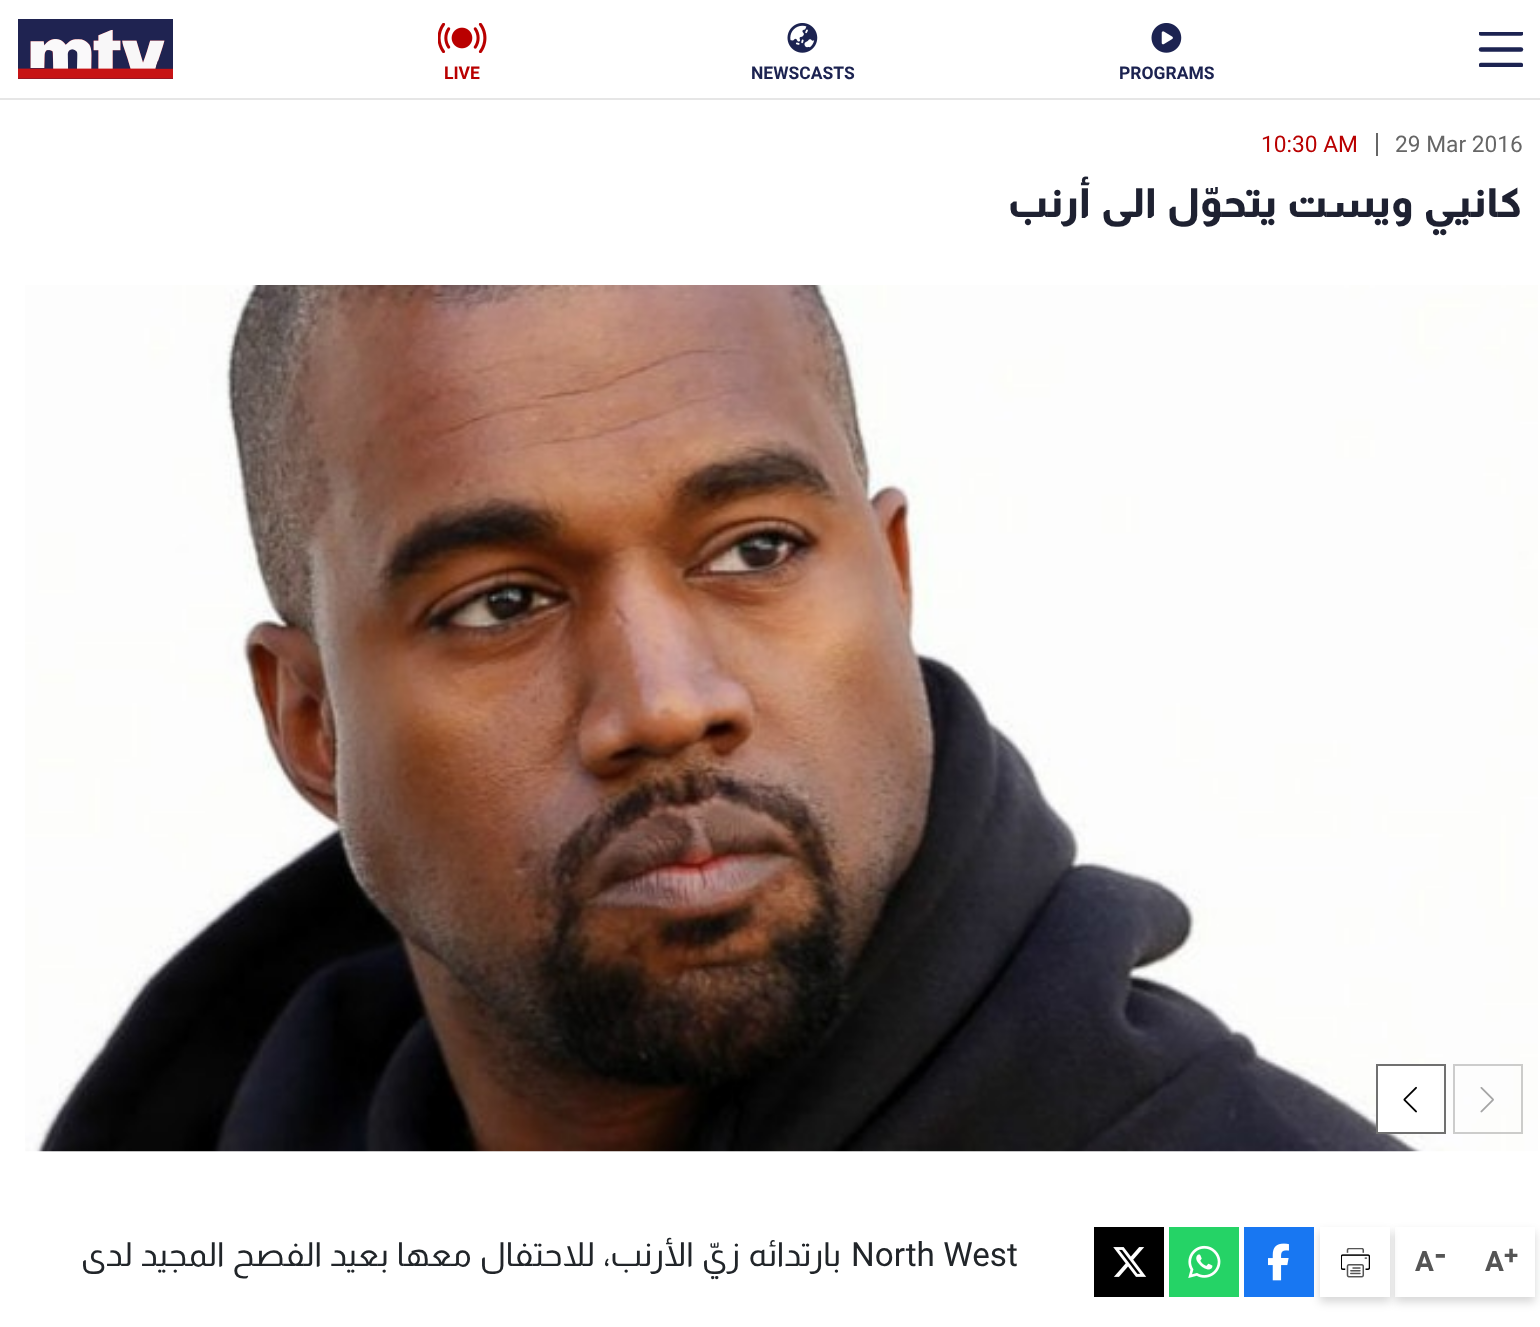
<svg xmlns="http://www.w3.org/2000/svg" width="1540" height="1327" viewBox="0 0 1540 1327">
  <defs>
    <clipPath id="clip1"><rect x="1479" y="32" width="44" height="35"/></clipPath>
    <filter id="blur1" x="-50%" y="-200%" width="200%" height="500%"><feGaussianBlur stdDeviation="5"/></filter>
  </defs>
  <rect width="100%" height="100%" fill="#ffffff"/>
  <rect x="0" y="98" width="1540" height="2" fill="#e6e6e6"/>
  <g clip-path="url(#clip1)">
    <path d="M1481 33.5H1521" fill="none" stroke="#1c2351" stroke-width="4.4" stroke-linecap="round"/>
  </g>
  <path d="M1481 49.5H1521" fill="none" stroke="#1c2351" stroke-width="4.4" stroke-linecap="round"/>
  <g clip-path="url(#clip1)">
    <path d="M1481 65H1521" fill="none" stroke="#1c2351" stroke-width="4.4" stroke-linecap="round"/>
  </g>
  <image x="18" y="19" width="155" height="60" href="img1.png"/>
  <image x="1151" y="23" width="31" height="30" href="img2.png"/>
  <text x="1119" y="79" font-family="Roboto" font-size="17.5" font-weight="bold" fill="#1c2351">PROGRAMS</text>
  <image x="787" y="23" width="31" height="30" href="img3.png"/>
  <text x="751" y="79" font-family="Roboto" font-size="17.5" font-weight="bold" fill="#1c2351">NEWSCASTS</text>
  <image x="438" y="23" width="49" height="30" href="img4.png"/>
  <text x="444" y="79" font-family="Roboto" font-size="17.5" font-weight="bold" fill="#b90000">LIVE</text>
  <rect x="1376" y="133" width="2" height="23" fill="#666666"/>
  <text x="1395" y="152" font-family="Roboto" font-size="22.75" fill="#666666">29 Mar 2016</text>
  <text x="1261" y="152" font-family="Roboto" font-size="22.75" fill="#b90000">10:30 AM</text>
  <text x="1522" y="217" word-spacing="2.5" font-family="Almarai" font-size="40.25" font-weight="800" direction="rtl" fill="#1e2131">كانيي ويست يتحوّل الى أرنب</text>
  <rect x="1395" y="1232" width="140" height="70" fill="#000000" fill-opacity="0.16" filter="url(#blur1)"/>
  <rect x="1395" y="1227" width="140" height="70" fill="#ffffff"/>
  <text x="1504" y="1264" font-family="Roboto" font-size="26" font-weight="bold" fill="#555555">+</text>
  <text x="1485" y="1271" font-family="Roboto" font-size="28" font-weight="bold" fill="#555555">A</text>
  <text x="1434" y="1266" font-family="Roboto" font-size="33.25" font-weight="bold" fill="#555555">-</text>
  <text x="1415" y="1271" font-family="Roboto" font-size="28" font-weight="bold" fill="#555555">A</text>
  <rect x="1320" y="1232" width="70" height="70" fill="#000000" fill-opacity="0.16" filter="url(#blur1)"/>
  <rect x="1320" y="1227" width="70" height="70" fill="#ffffff"/>
  <image x="1341" y="1248" width="29" height="30" href="img5.png"/>
  <rect x="1244" y="1227" width="70" height="70" fill="#1877f2"/>
  <image x="1268" y="1243" width="21" height="38" href="img6.png"/>
  <rect x="1169" y="1227" width="70" height="70" fill="#25d366"/>
  <image x="1188" y="1245" width="33" height="33" href="img7.png"/>
  <rect x="1094" y="1227" width="70" height="70" fill="#000000"/>
  <image x="1113" y="1247" width="34" height="30" href="img8.png"/>
  <text x="851" y="1266" font-family="Roboto" font-size="33.25" fill="#212529">North West</text>
  <text x="841" y="1266" word-spacing="2" font-family="Almarai" font-size="33.25" direction="rtl" fill="#212529">بارتدائه زيّ الأرنب، للاحتفال معها بعيد الفصح المجيد لدى</text>
  <image x="25" y="285" width="1513" height="867" href="img9.png"/>
  <rect x="1454" y="1065" width="68" height="68" fill="none" stroke="#707070" stroke-opacity="0.35" stroke-width="2"/>
  <image x="1480" y="1087" width="14" height="26" href="img10.png"/>
  <rect x="1378" y="1066" width="62" height="66" fill="#ffffff"/>
  <rect x="1377" y="1065" width="68" height="68" fill="none" stroke="#707070" stroke-width="2"/>
  <image x="1403" y="1086" width="14" height="27" href="img11.png"/>
</svg>
